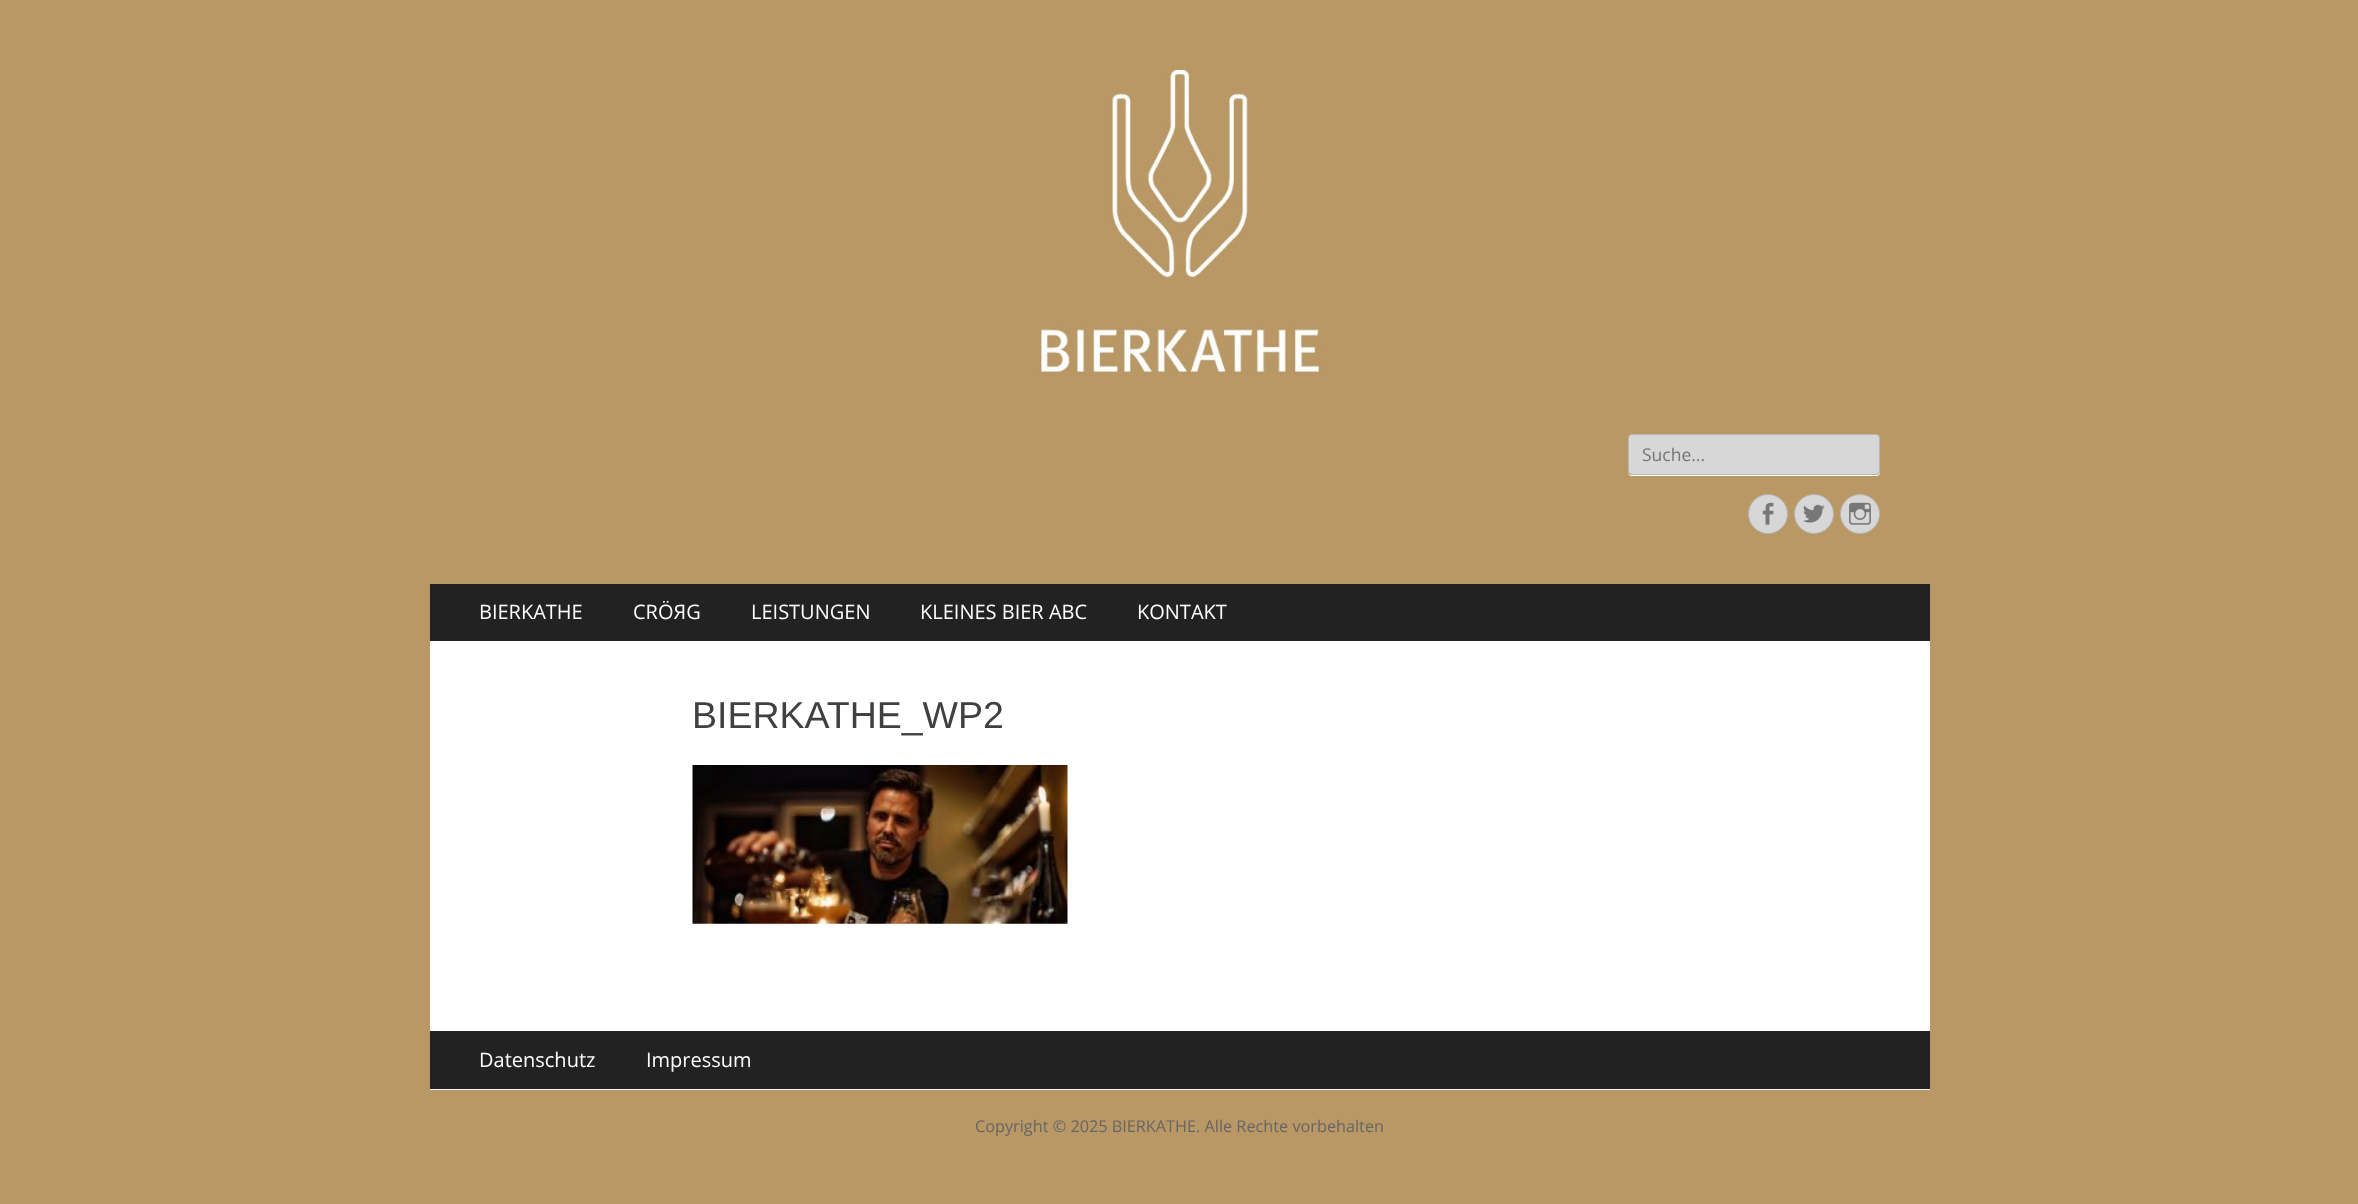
<svg xmlns="http://www.w3.org/2000/svg" width="2358" height="1204" viewBox="0 0 2358 1204">
  <rect width="100%" height="100%" fill="#b99865"/>
  <image x="1033" y="68" width="291" height="307" href="img1.png"/>
  <path d="M1628 474C1629 475 1630 476 1632 476H1876C1879 476 1880 474 1880 471C1880 473 1878 475 1876 475H1631C1630 475 1629 474 1628 474Z" fill="#ffffff"/>
  <rect x="1628.5" y="434.5" width="251" height="40" rx="3.5" fill="#d7d7d7" stroke="#b6b6b6"/>
  <text x="1642" y="461" font-family="Open Sans" font-size="17.5" fill="#757575">Suche...</text>
  <circle cx="1768" cy="514" r="19.5" fill="#d7d7d7" stroke="#b6b6b6"/>
  <image x="1762" y="502" width="12" height="23" href="img2.png"/>
  <circle cx="1814" cy="514" r="19.5" fill="#d7d7d7" stroke="#b6b6b6"/>
  <image x="1803" y="504" width="22" height="19" href="img3.png"/>
  <circle cx="1860" cy="514" r="19.5" fill="#d7d7d7" stroke="#b6b6b6"/>
  <image x="1849" y="502" width="22" height="23" href="img4.png"/>
  <rect x="430" y="584" width="1500" height="57" fill="#222222"/>
  <text x="479" y="619" font-family="Open Sans" font-size="20" fill="#ffffff">BIERKATHE</text>
  <text x="633" y="619" font-family="Open Sans" font-size="20" fill="#ffffff">CRÖЯG</text>
  <text x="751" y="619" font-family="Open Sans" font-size="20" fill="#ffffff">LEISTUNGEN</text>
  <text x="920" y="619" font-family="Open Sans" font-size="20" fill="#ffffff">KLEINES BIER ABC</text>
  <text x="1137" y="619" font-family="Open Sans" font-size="20" fill="#ffffff">KONTAKT</text>
  <rect x="430" y="641" width="1500" height="390" fill="#ffffff"/>
  <text x="692" y="728" font-family="Liberation Sans" font-size="37.5" fill="#404040">BIERKATHE_WP2</text>
  <image x="692" y="765" width="376" height="159" href="img5.png"/>
  <rect x="430" y="1031" width="1500" height="58" fill="#222222"/>
  <text x="479" y="1067" font-family="Open Sans" font-size="20" fill="#ffffff">Datenschutz</text>
  <text x="646" y="1067" font-family="Open Sans" font-size="20" fill="#ffffff">Impressum</text>
  <rect x="430" y="1089" width="1500" height="1" fill="#f4f4f4"/>
  <text x="975" y="1132" font-family="Open Sans" font-size="16.25" fill="#666666">Copyright © 2025 BIERKATHE. Alle Rechte vorbehalten</text>
</svg>
